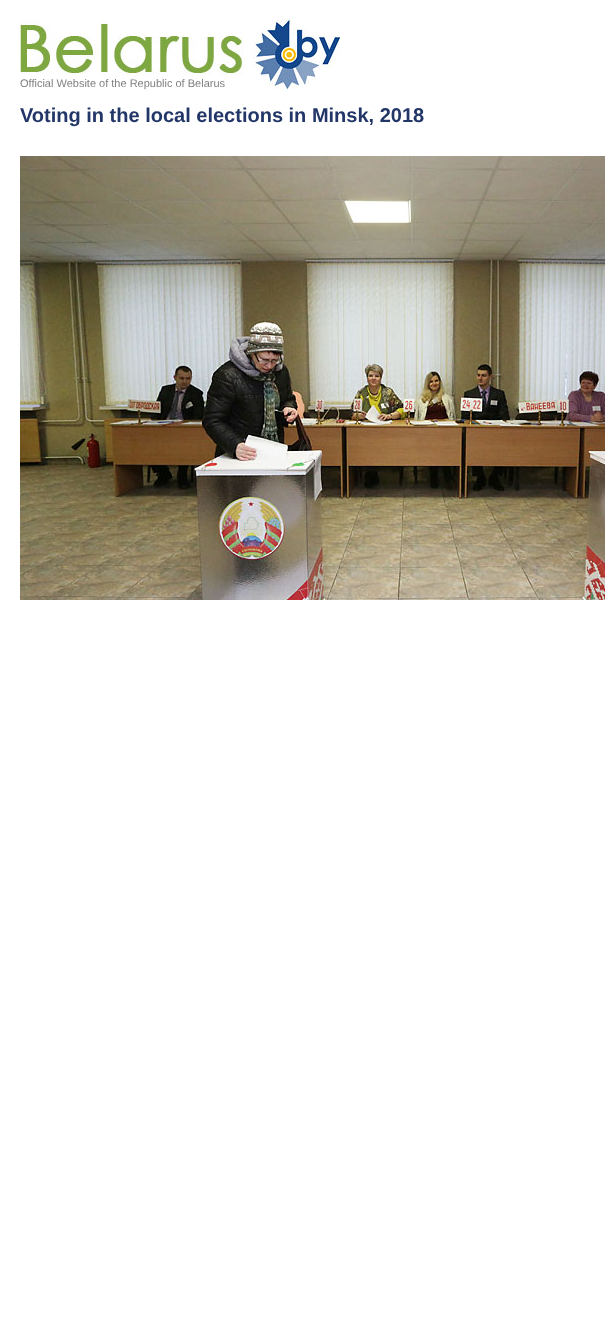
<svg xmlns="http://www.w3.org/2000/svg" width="605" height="1320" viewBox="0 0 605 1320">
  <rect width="100%" height="100%" fill="#ffffff"/>
  <image x="20" y="20" width="320" height="70" href="img1.png"/>
  <text x="20" y="87" font-family="Liberation Sans" font-size="11" fill="#818181">Official Website of the Republic of Belarus</text>
  <text x="20" y="122" font-family="Liberation Sans" font-size="20" font-weight="bold" fill="#223668">Voting in the local elections in Minsk, 2018</text>
  <image x="20" y="156" width="585" height="444" href="img2.png"/>
</svg>
